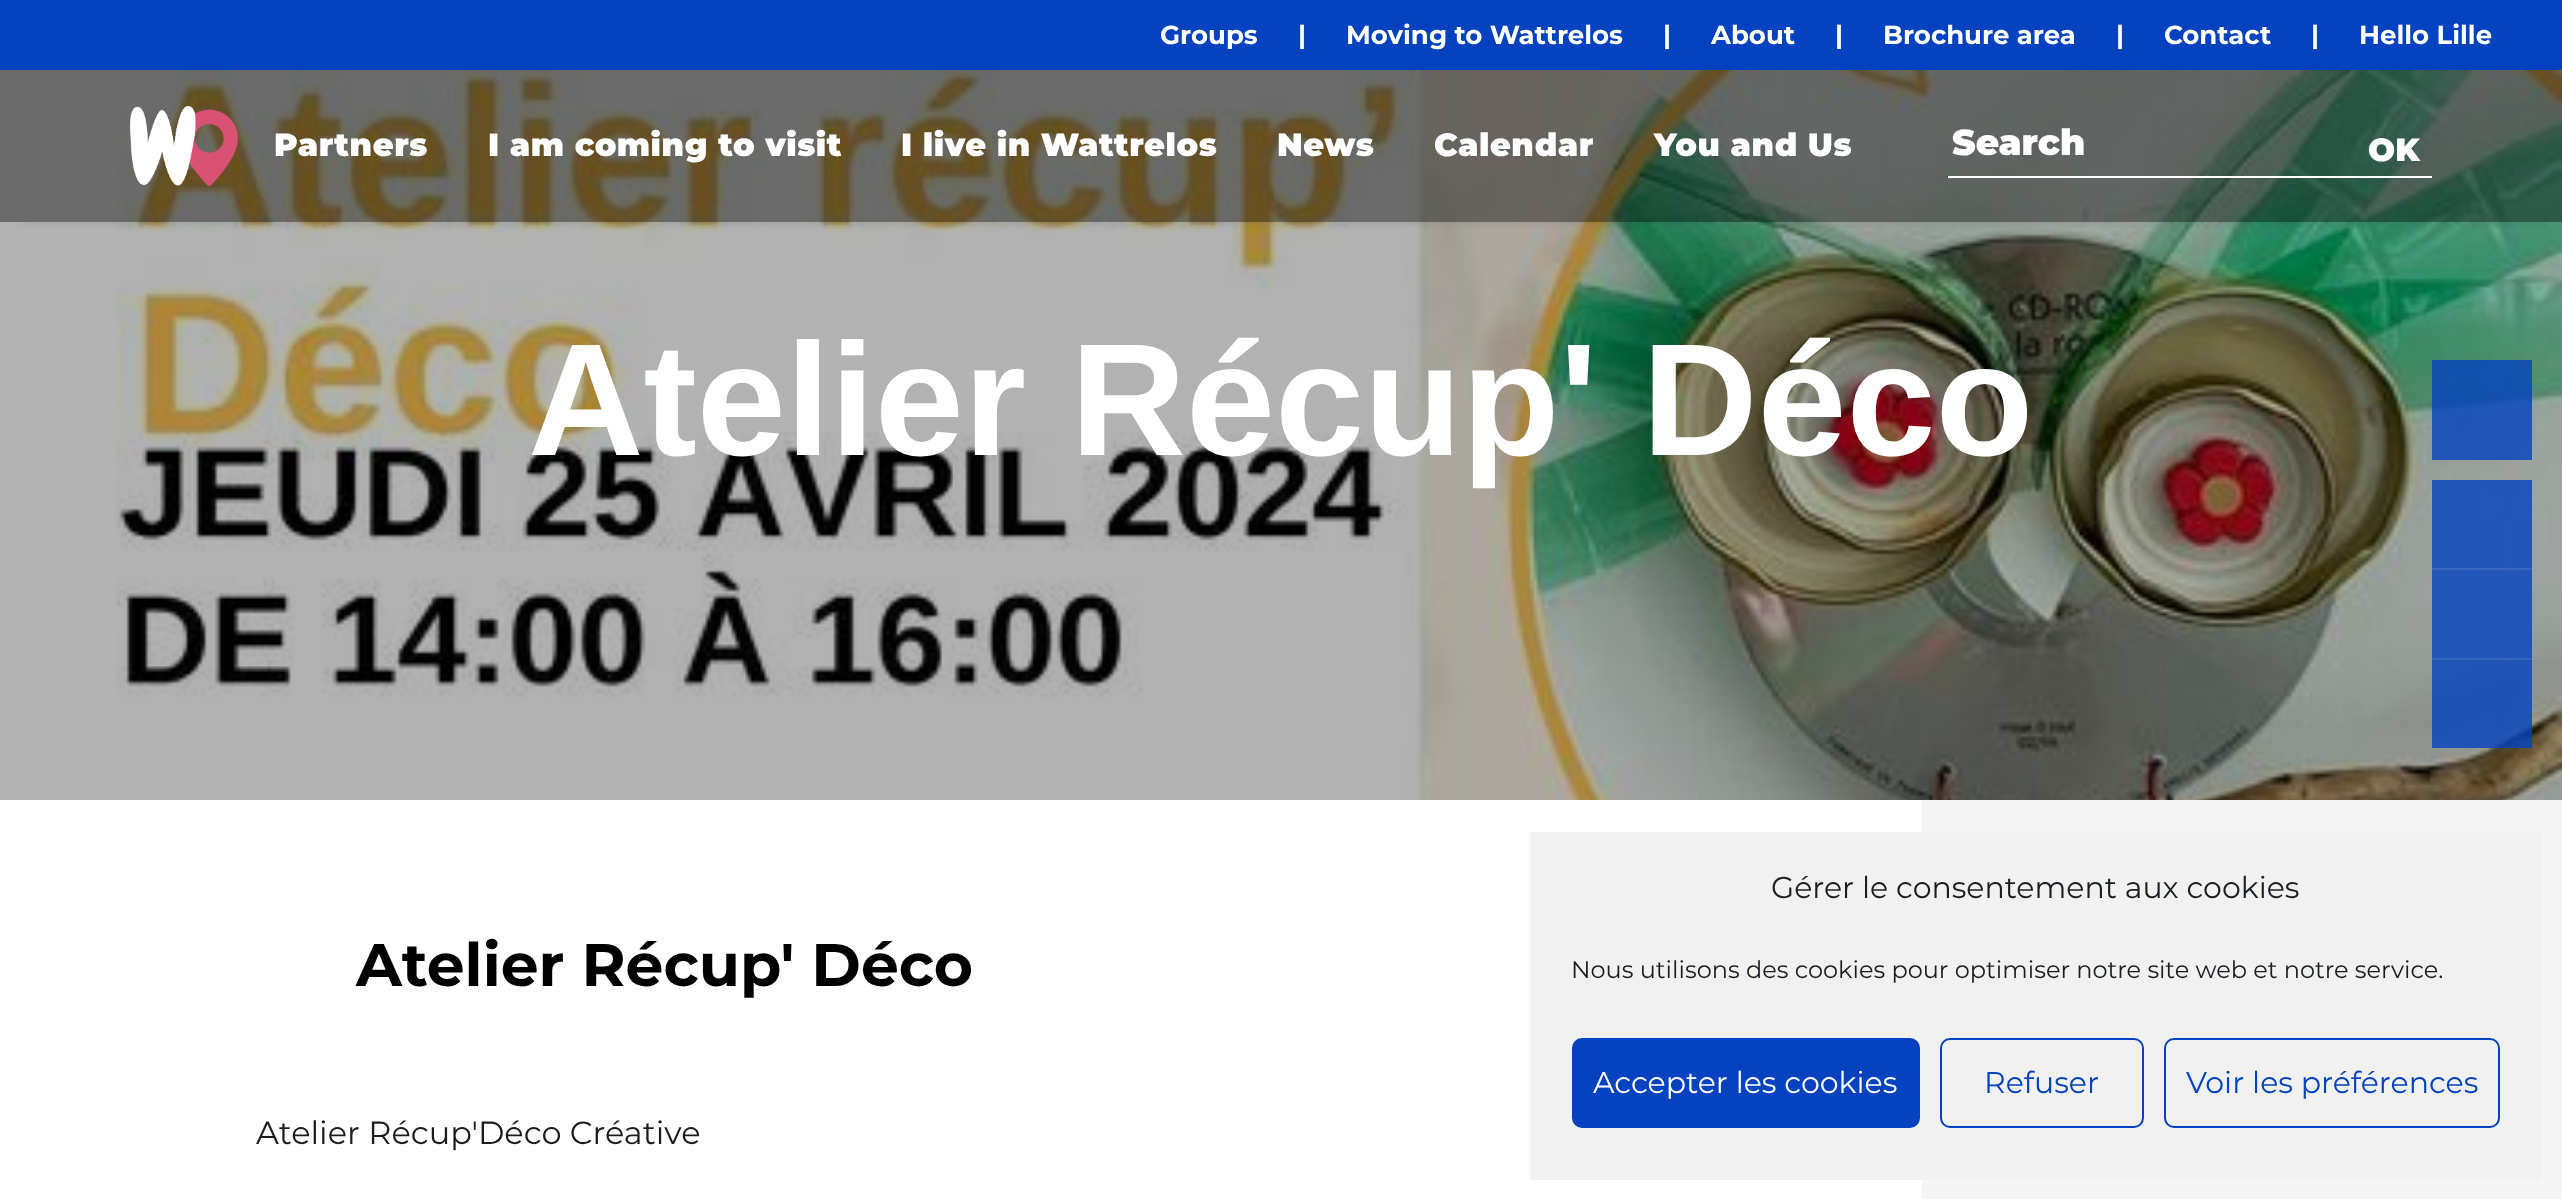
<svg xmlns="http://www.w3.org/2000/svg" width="2562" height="1199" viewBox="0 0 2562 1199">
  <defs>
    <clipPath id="clip1"><rect x="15" y="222" width="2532" height="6"/></clipPath>
    <filter id="blur1" x="-50%" y="-200%" width="200%" height="500%"><feGaussianBlur stdDeviation="10"/></filter>
  </defs>
  <rect width="100%" height="100%" fill="#b3b3b3"/>
  <image x="115" y="70" width="2447" height="730" href="img2.png"/>
  <g clip-path="url(#clip1)">
    <rect x="20" y="98" width="2522" height="112" fill="#000000" fill-opacity="0.6" filter="url(#blur1)"/>
  </g>
  <rect x="0" y="0" width="2562" height="70" fill="#0442bf"/>
  <text x="1160" y="44" font-family="Montserrat" font-size="26" font-weight="bold" fill="#ffffff">Groups</text>
  <text x="1298" y="44" font-family="Montserrat" font-size="26" font-weight="bold" fill="#ffffff">|</text>
  <text x="1346" y="44" font-family="Montserrat" font-size="26" font-weight="bold" fill="#ffffff">Moving to Wattrelos</text>
  <text x="1663" y="44" font-family="Montserrat" font-size="26" font-weight="bold" fill="#ffffff">|</text>
  <text x="1711" y="44" font-family="Montserrat" font-size="26" font-weight="bold" fill="#ffffff">About</text>
  <text x="1835" y="44" font-family="Montserrat" font-size="26" font-weight="bold" fill="#ffffff">|</text>
  <text x="1883" y="44" font-family="Montserrat" font-size="26" font-weight="bold" fill="#ffffff">Brochure area</text>
  <text x="2116" y="44" font-family="Montserrat" font-size="26" font-weight="bold" fill="#ffffff">|</text>
  <text x="2164" y="44" font-family="Montserrat" font-size="26" font-weight="bold" fill="#ffffff">Contact</text>
  <text x="2311" y="44" font-family="Montserrat" font-size="26" font-weight="bold" fill="#ffffff">|</text>
  <text x="2359" y="44" font-family="Montserrat" font-size="26" font-weight="bold" fill="#ffffff">Hello Lille</text>
  <rect x="0" y="70" width="2562" height="152" fill="#000000" fill-opacity="0.4"/>
  <image x="130" y="106" width="108" height="80" href="img1.png"/>
  <text x="274" y="156" font-family="Montserrat" font-size="32" font-weight="900" letter-spacing="0.5" fill="#ffffff">Partners</text>
  <text x="488" y="156" font-family="Montserrat" font-size="32" font-weight="900" letter-spacing="0.5" fill="#ffffff">I am coming to visit</text>
  <text x="901" y="156" font-family="Montserrat" font-size="32" font-weight="900" letter-spacing="0.5" fill="#ffffff">I live in Wattrelos</text>
  <text x="1277" y="156" font-family="Montserrat" font-size="32" font-weight="900" letter-spacing="0.5" fill="#ffffff">News</text>
  <text x="1434" y="156" font-family="Montserrat" font-size="32" font-weight="900" letter-spacing="0.5" fill="#ffffff">Calendar</text>
  <text x="1654" y="156" font-family="Montserrat" font-size="32" font-weight="900" letter-spacing="0.5" fill="#ffffff">You and Us</text>
  <rect x="1948" y="176" width="484" height="2" fill="#ffffff"/>
  <text x="1952" y="155" font-family="Montserrat" font-size="36" font-weight="900" fill="#ffffff">Search</text>
  <text x="2368" y="161" font-family="Montserrat" font-size="32" font-weight="900" fill="#ffffff">OK</text>
  <text x="528" y="455" font-family="Liberation Sans" font-size="160" font-weight="bold" fill="#ffffff">Atelier Récup' Déco</text>
  <rect x="2432" y="360" width="100" height="100" fill="#0442bf" fill-opacity="0.8"/>
  <rect x="2432" y="480" width="100" height="88" fill="#0442bf" fill-opacity="0.8"/>
  <rect x="2432" y="568" width="100" height="2" fill="#3966c0"/>
  <rect x="2432" y="570" width="100" height="88" fill="#0442bf" fill-opacity="0.8"/>
  <rect x="2432" y="658" width="100" height="2" fill="#3765be"/>
  <rect x="2432" y="660" width="100" height="88" fill="#0442bf" fill-opacity="0.8"/>
  <rect x="1922" y="800" width="640" height="399" fill="#f5f5f5"/>
  <rect x="0" y="800" width="1922" height="399" fill="#ffffff"/>
  <text x="356" y="986" font-family="Montserrat" font-size="60" font-weight="bold" fill="#000000">Atelier Récup' Déco</text>
  <text x="256" y="1144" font-family="Montserrat" font-size="32" fill="#1c1c1c">Atelier Récup'Déco Créative</text>
  <rect x="1530" y="832" width="1012" height="348" fill="#f1f1f1"/>
  <text x="1771" y="898" font-family="Montserrat" font-size="30" fill="#191e23">Gérer le consentement aux cookies</text>
  <text x="1571" y="978" font-family="Montserrat" font-size="24" fill="#191e23">Nous utilisons des cookies pour optimiser notre site web et notre service.</text>
  <rect x="1573" y="1039" width="346" height="88" rx="9" fill="#0442bf" stroke="#0442bf" stroke-width="2"/>
  <text x="1593" y="1093" font-family="Montserrat" font-size="30" fill="#ffffff">Accepter les cookies</text>
  <rect x="1941" y="1039" width="202" height="88" rx="9" fill="none" stroke="#0442bf" stroke-width="2"/>
  <text x="1984" y="1093" font-family="Montserrat" font-size="30" fill="#0442bf">Refuser</text>
  <rect x="2165" y="1039" width="334" height="88" rx="9" fill="none" stroke="#0442bf" stroke-width="2"/>
  <text x="2186" y="1093" font-family="Montserrat" font-size="30" fill="#0442bf">Voir les préférences</text>
</svg>
